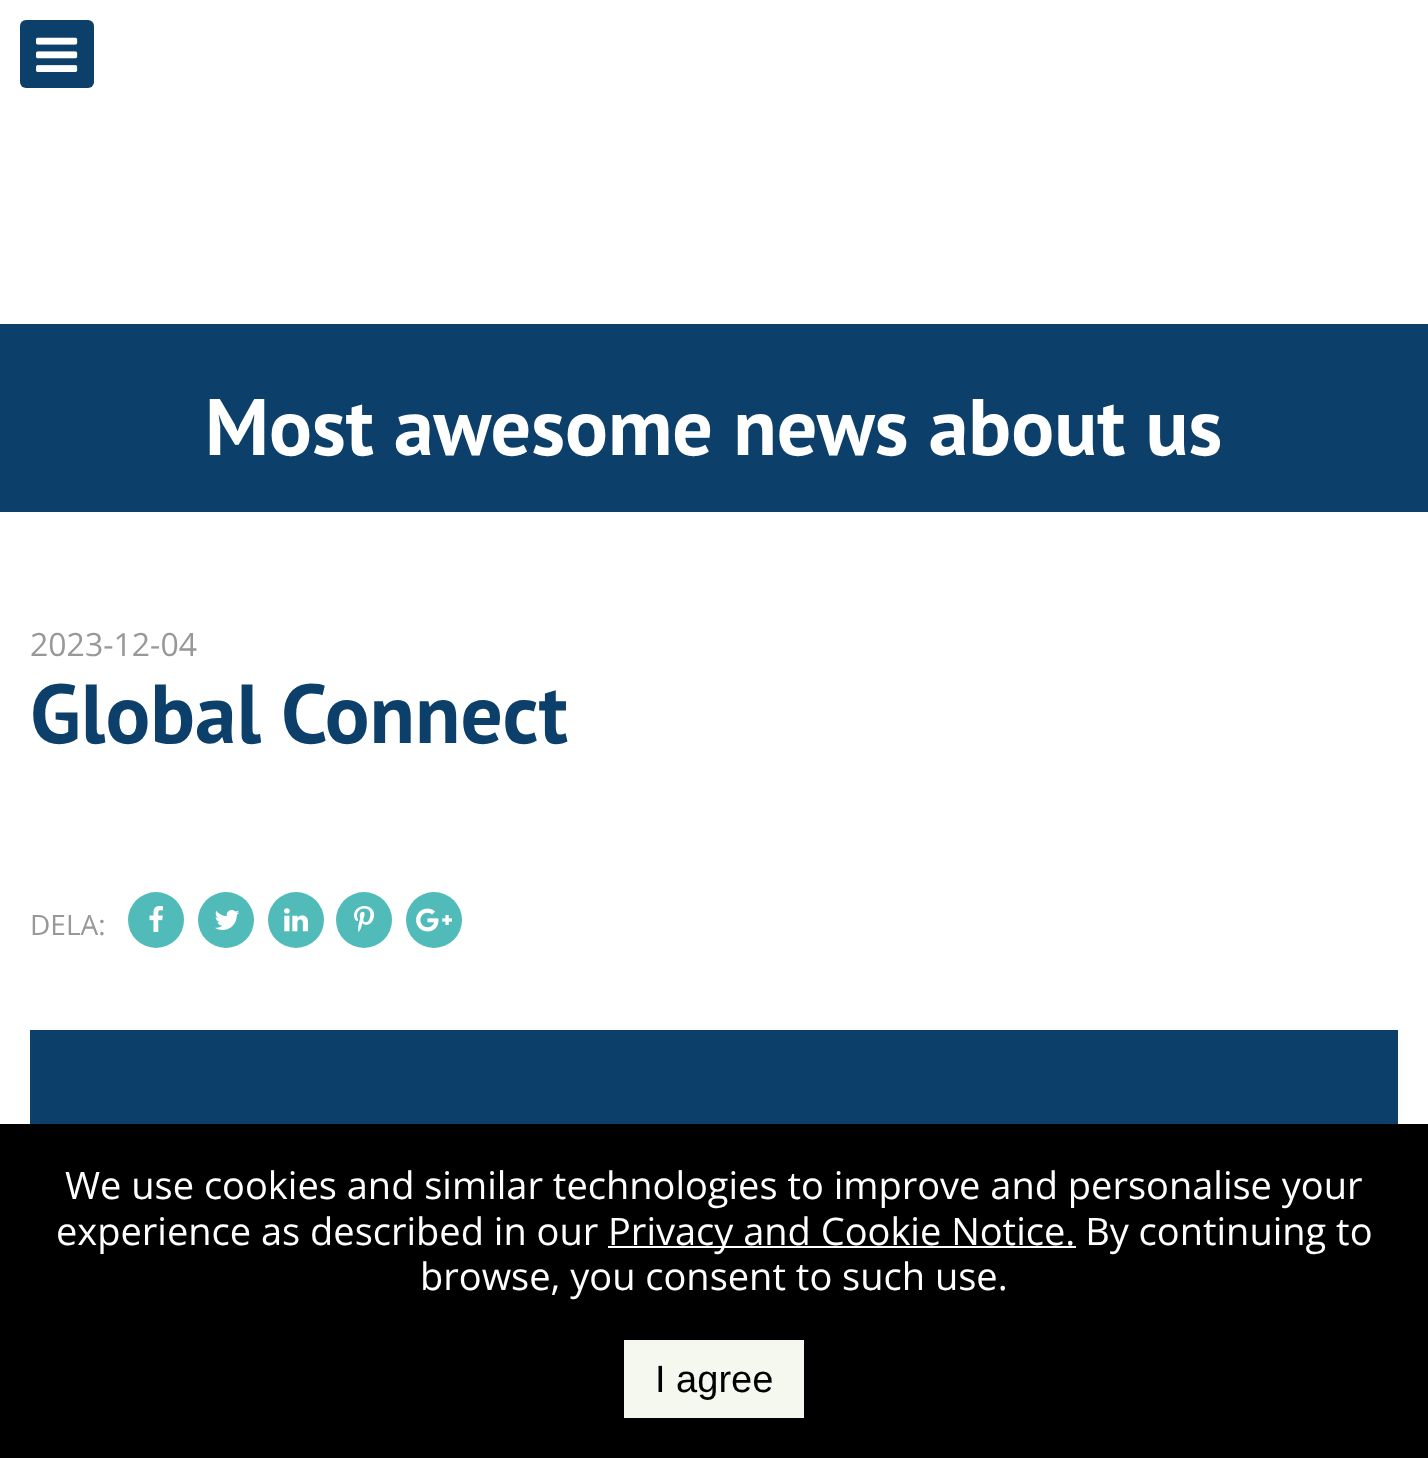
<svg xmlns="http://www.w3.org/2000/svg" width="1428" height="1458" viewBox="0 0 1428 1458">
  <rect width="100%" height="100%" fill="#ffffff"/>
  <rect x="20" y="20" width="74" height="68" rx="6" fill="#0c3f69"/>
  <image x="36" y="37" width="42" height="35" href="img1.png"/>
  <rect x="0" y="324" width="1428" height="188" fill="#0c3f69"/>
  <text x="205" y="455" font-family="PT Sans" font-size="80" font-weight="bold" fill="#ffffff">Most awesome news about us</text>
  <text x="30" y="656" font-family="Open Sans" font-size="32" fill="#989898">2023-12-04</text>
  <text x="30" y="743" font-family="PT Sans" font-size="83.5" font-weight="bold" fill="#0c3f69">Global Connect</text>
  <text x="30" y="935" font-family="Open Sans" font-size="28" fill="#989898">DELA:</text>
  <circle cx="156" cy="920" r="28" fill="#50bbb9"/>
  <image x="149" y="906" width="14" height="26" href="img2.png"/>
  <circle cx="226" cy="920" r="28" fill="#50bbb9"/>
  <image x="214" y="910" width="26" height="20" href="img3.png"/>
  <circle cx="296" cy="920" r="28" fill="#50bbb9"/>
  <image x="284" y="908" width="24" height="24" href="img4.png"/>
  <circle cx="364" cy="920" r="28" fill="#50bbb9"/>
  <image x="354" y="906" width="20" height="26" href="img5.png"/>
  <circle cx="434" cy="920" r="28" fill="#50bbb9"/>
  <image x="416" y="908" width="36" height="24" href="img6.png"/>
  <rect x="30" y="1030" width="1368" height="94" fill="#0c3f69"/>
  <rect x="0" y="1124" width="1428" height="334" fill="#000000"/>
  <text x="65" y="1199" font-family="Open Sans" font-size="38" fill="#ffffff">We use cookies and similar technologies to improve and personalise your</text>
  <text x="56" y="1245" font-family="Open Sans" font-size="38" fill="#ffffff">experience as described in our</text>
  <rect x="608" y="1246" width="468" height="2" fill="#ffffff"/>
  <text x="608" y="1245" font-family="Open Sans" font-size="38" fill="#ffffff">Privacy and Cookie Notice. By continuing to</text>
  <text x="420" y="1290" font-family="Open Sans" font-size="38" fill="#ffffff">browse, you consent to such use.</text>
  <rect x="624" y="1340" width="180" height="78" fill="#f5f8ee"/>
  <text x="655" y="1392" font-family="Liberation Sans" font-size="38" fill="#000000">I agree</text>
</svg>
